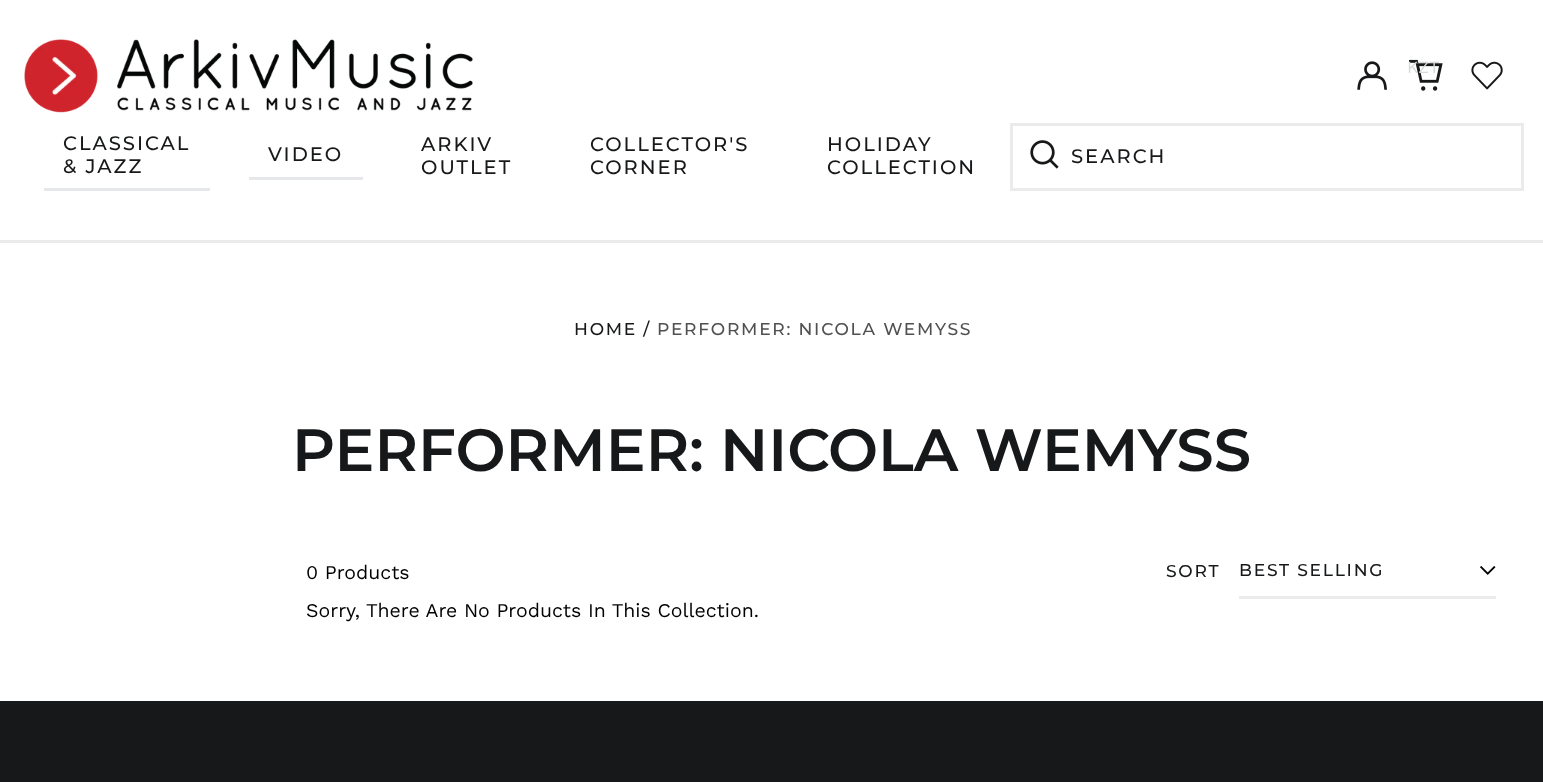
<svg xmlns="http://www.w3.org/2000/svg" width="1543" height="782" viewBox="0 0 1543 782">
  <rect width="100%" height="100%" fill="#ffffff"/>
  <image x="1409" y="59" width="34" height="32" href="img3.png"/>
  <text x="1407" y="73" font-family="Work Sans" font-size="17.1" fill="#d7d8d8">KZT</text>
  <rect x="0" y="240" width="1543" height="3" fill="#ebebeb"/>
  <image x="24" y="39" width="449" height="74" href="img1.png"/>
  <image x="1357" y="61" width="30" height="29" href="img2.png"/>
  <image x="1471" y="61" width="32" height="29" href="img4.png"/>
  <rect x="44" y="188" width="166" height="3" fill="#e5e7eb"/>
  <text x="63" y="150" font-family="Montserrat" font-size="19.5" font-weight="500" letter-spacing="2" fill="#161819">CLASSICAL</text>
  <text x="63" y="173" font-family="Montserrat" font-size="19.5" font-weight="500" letter-spacing="2" fill="#161819">&amp; JAZZ</text>
  <rect x="249" y="177" width="114" height="3" fill="#e5e7eb"/>
  <text x="268" y="161" font-family="Montserrat" font-size="19.5" font-weight="500" letter-spacing="2" fill="#161819">VIDEO</text>
  <text x="421" y="151" font-family="Montserrat" font-size="19.5" font-weight="500" letter-spacing="2" fill="#161819">ARKIV</text>
  <text x="421" y="174" font-family="Montserrat" font-size="19.5" font-weight="500" letter-spacing="2" fill="#161819">OUTLET</text>
  <text x="590" y="151" font-family="Montserrat" font-size="19.5" font-weight="500" letter-spacing="2" fill="#161819">COLLECTOR'S</text>
  <text x="590" y="174" font-family="Montserrat" font-size="19.5" font-weight="500" letter-spacing="2" fill="#161819">CORNER</text>
  <text x="827" y="151" font-family="Montserrat" font-size="19.5" font-weight="500" letter-spacing="2" fill="#161819">HOLIDAY</text>
  <text x="827" y="174" font-family="Montserrat" font-size="19.5" font-weight="500" letter-spacing="2" fill="#161819">COLLECTION</text>
  <rect x="1011.5" y="124.5" width="511" height="65" fill="none" stroke="#ebebeb" stroke-width="3"/>
  <image x="1030" y="140" width="29" height="29" href="img5.png"/>
  <text x="1071" y="163" font-family="Montserrat" font-size="19.5" font-weight="500" letter-spacing="2" fill="#161819">SEARCH</text>
  <text x="574" y="335" font-family="Montserrat" font-size="17.1" font-weight="500" letter-spacing="1.75" fill="#161819">HOME /</text>
  <text x="657" y="335" font-family="Montserrat" font-size="17.1" font-weight="500" letter-spacing="1.75" fill="#505050">PERFORMER: NICOLA WEMYSS</text>
  <text x="292" y="471" font-family="Montserrat" font-size="59.5" font-weight="600" fill="#161819">PERFORMER: NICOLA WEMYSS</text>
  <text x="306" y="579" font-family="Work Sans" font-size="19.5" fill="#000000">0 Products</text>
  <text x="1166" y="577" font-family="Montserrat" font-size="17.1" font-weight="500" letter-spacing="1.75" fill="#161819">SORT</text>
  <image x="1480" y="566" width="16" height="9" href="img6.png"/>
  <rect x="1239" y="596" width="257" height="3" fill="#ebebeb"/>
  <text x="1239" y="576" font-family="Montserrat" font-size="17.1" font-weight="500" letter-spacing="1.75" fill="#161819">BEST SELLING</text>
  <text x="306" y="617" font-family="Work Sans" font-size="19.5" fill="#000000">Sorry, There Are No Products In This Collection.</text>
  <rect x="0" y="701" width="1543" height="81" fill="#161819"/>
</svg>
